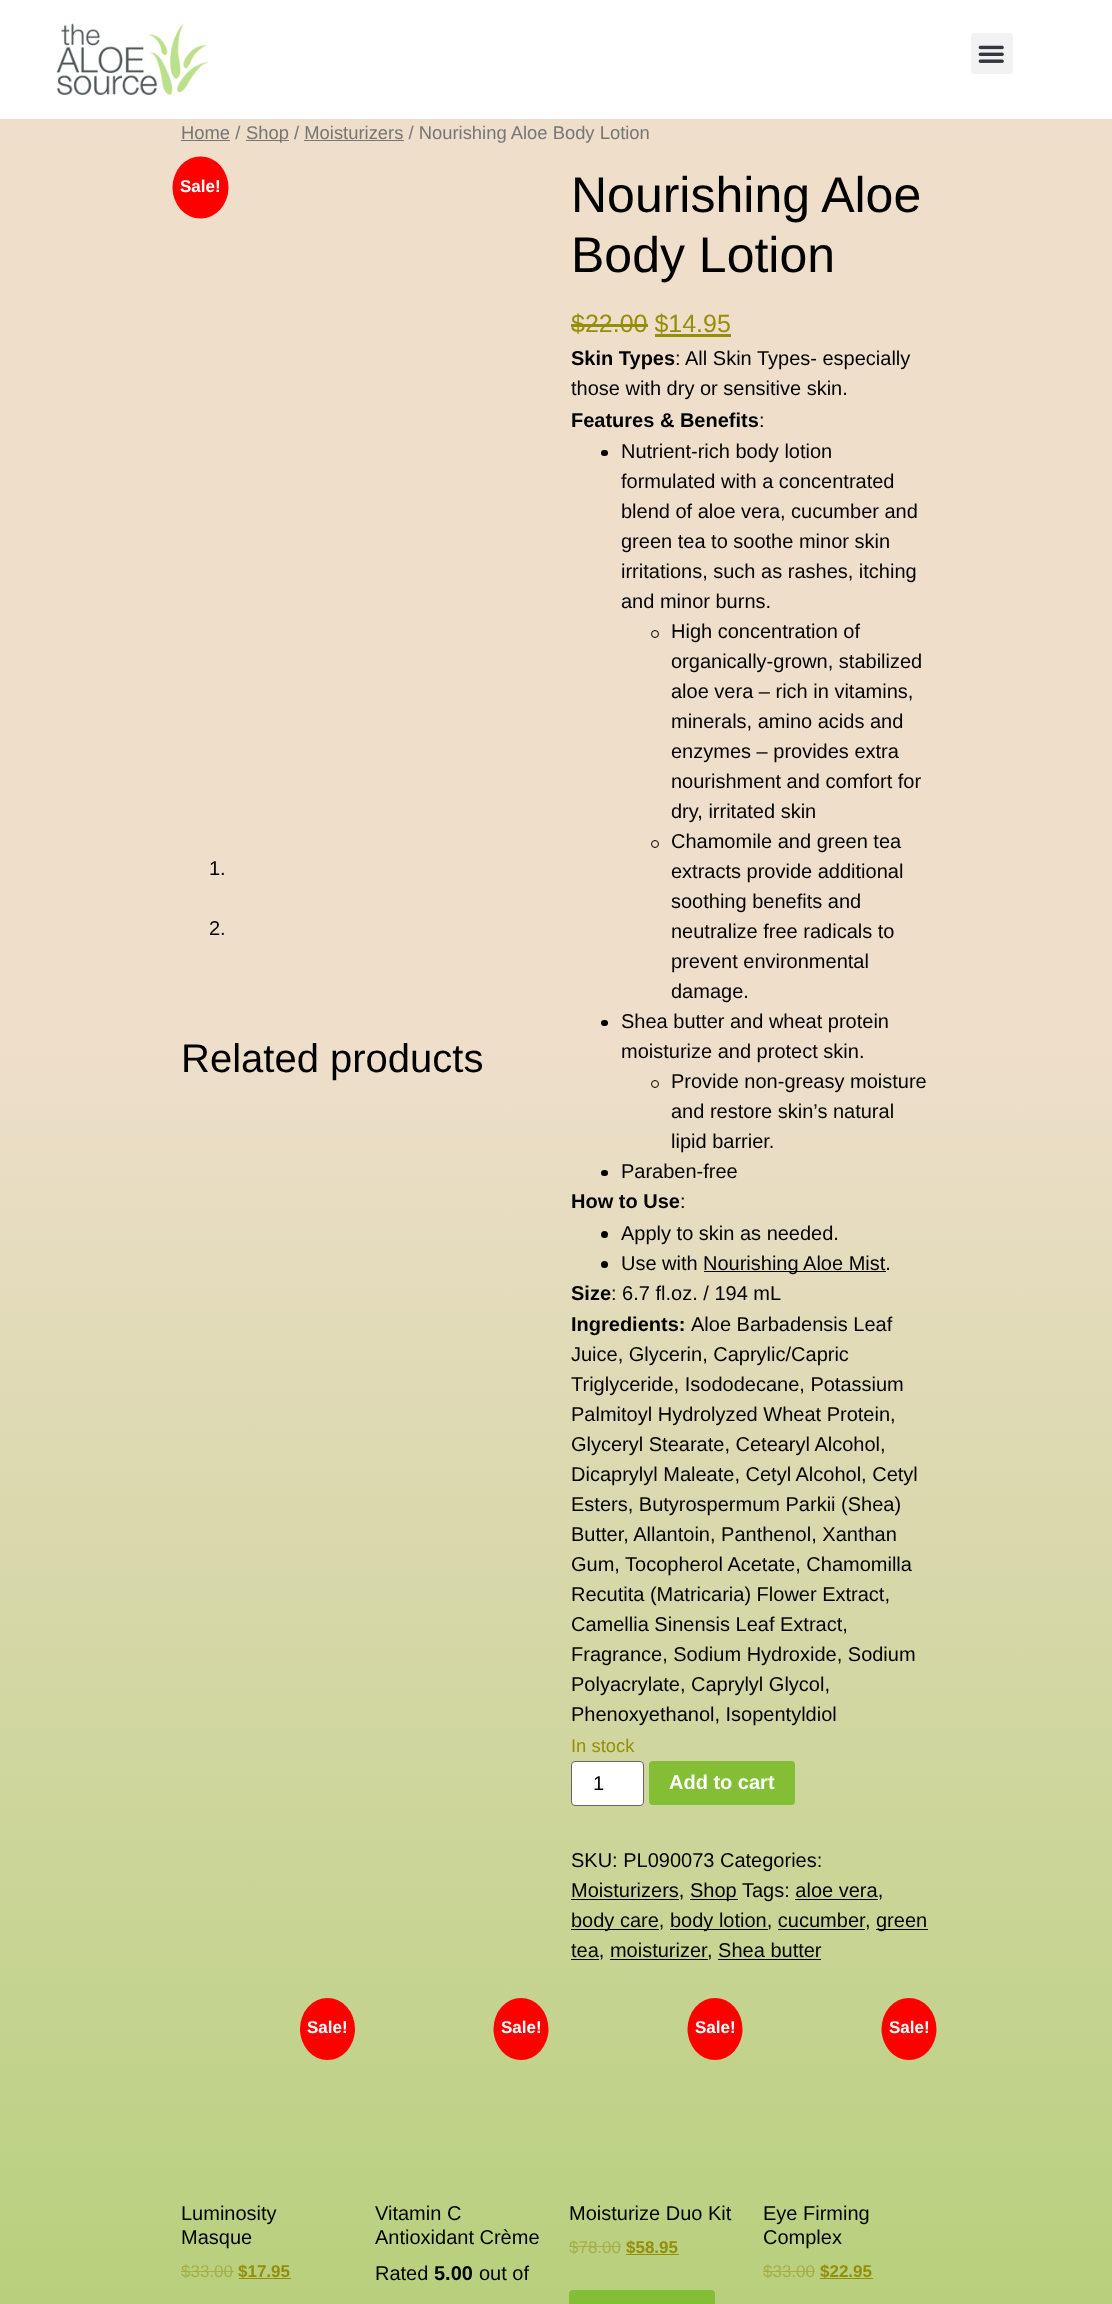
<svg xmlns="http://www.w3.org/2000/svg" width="1112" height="2304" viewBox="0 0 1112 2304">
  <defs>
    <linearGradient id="g1" gradientUnits="userSpaceOnUse" x1="556" y1="0" x2="556" y2="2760"><stop offset="0.38" stop-color="#eedeca"/><stop offset="1" stop-color="#a4cb61"/></linearGradient>
  </defs>
  <rect width="100%" height="100%" fill="#ffffff"/>
  <rect x="0" y="119" width="1112" height="2185" fill="url(#g1)"/>
  <image x="56" y="23" width="153" height="72" href="img1.png"/>
  <rect x="971" y="33" width="42" height="41" rx="4" fill="#f2f2f2"/>
  <image x="978" y="45" width="26" height="18" href="img2.png"/>
  <text x="181" y="139" font-family="Liberation Sans" font-size="18.4" fill="#767676">Home /</text>
  <rect x="181" y="140" width="49" height="1" fill="#767676"/>
  <rect x="246" y="140" width="43" height="1" fill="#767676"/>
  <text x="246" y="139" font-family="Liberation Sans" font-size="18.4" fill="#767676">Shop / Moisturizers / Nourishing Aloe Body Lotion</text>
  <rect x="304" y="140" width="100" height="1" fill="#767676"/>
  <ellipse cx="200.5" cy="187.5" rx="28" ry="31" fill="#ff0000"/>
  <text x="180" y="192" font-family="Liberation Sans" font-size="17" font-weight="bold" fill="#ffffff">Sale!</text>
  <text x="571" y="212" font-family="Liberation Sans" font-size="50" fill="#000000">Nourishing Aloe</text>
  <text x="571" y="272" font-family="Liberation Sans" font-size="50" fill="#000000">Body Lotion</text>
  <text x="571" y="332" font-family="Liberation Sans" font-size="25" fill="#958e09">$22.00 $14.95</text>
  <rect x="571" y="324" width="77" height="3" fill="#958e09"/>
  <rect x="655" y="334" width="76" height="3" fill="#958e09"/>
  <text x="571" y="365" font-family="Liberation Sans" font-size="20" font-weight="bold" fill="#000000">Skin Types</text>
  <text x="675" y="365" font-family="Liberation Sans" font-size="20" fill="#000000">: All Skin Types- especially</text>
  <text x="571" y="395" font-family="Liberation Sans" font-size="20" fill="#000000">those with dry or sensitive skin.</text>
  <text x="571" y="427" font-family="Liberation Sans" font-size="20" font-weight="bold" fill="#000000">Features &amp; Benefits</text>
  <text x="759" y="427" font-family="Liberation Sans" font-size="20" fill="#000000">:</text>
  <rect x="601" y="450" width="7" height="6" rx="3" fill="#000000"/>
  <text x="621" y="458" font-family="Liberation Sans" font-size="20" fill="#000000">Nutrient-rich body lotion</text>
  <text x="621" y="488" font-family="Liberation Sans" font-size="20" fill="#000000">formulated with a concentrated</text>
  <text x="621" y="518" font-family="Liberation Sans" font-size="20" fill="#000000">blend of aloe vera, cucumber and</text>
  <text x="621" y="548" font-family="Liberation Sans" font-size="20" fill="#000000">green tea to soothe minor skin</text>
  <text x="621" y="578" font-family="Liberation Sans" font-size="20" fill="#000000">irritations, such as rashes, itching</text>
  <text x="621" y="608" font-family="Liberation Sans" font-size="20" fill="#000000">and minor burns.</text>
  <circle cx="655" cy="634" r="3.5" fill="none" stroke="#000000"/>
  <text x="671" y="638" font-family="Liberation Sans" font-size="20" fill="#000000">High concentration of</text>
  <text x="671" y="668" font-family="Liberation Sans" font-size="20" fill="#000000">organically-grown, stabilized</text>
  <text x="671" y="698" font-family="Liberation Sans" font-size="20" fill="#000000">aloe vera – rich in vitamins,</text>
  <text x="671" y="728" font-family="Liberation Sans" font-size="20" fill="#000000">minerals, amino acids and</text>
  <text x="671" y="758" font-family="Liberation Sans" font-size="20" fill="#000000">enzymes – provides extra</text>
  <text x="671" y="788" font-family="Liberation Sans" font-size="20" fill="#000000">nourishment and comfort for</text>
  <text x="671" y="818" font-family="Liberation Sans" font-size="20" fill="#000000">dry, irritated skin</text>
  <circle cx="655" cy="844" r="3.5" fill="none" stroke="#000000"/>
  <text x="671" y="848" font-family="Liberation Sans" font-size="20" fill="#000000">Chamomile and green tea</text>
  <text x="671" y="878" font-family="Liberation Sans" font-size="20" fill="#000000">extracts provide additional</text>
  <text x="671" y="908" font-family="Liberation Sans" font-size="20" fill="#000000">soothing benefits and</text>
  <text x="671" y="938" font-family="Liberation Sans" font-size="20" fill="#000000">neutralize free radicals to</text>
  <text x="671" y="968" font-family="Liberation Sans" font-size="20" fill="#000000">prevent environmental</text>
  <text x="671" y="998" font-family="Liberation Sans" font-size="20" fill="#000000">damage.</text>
  <rect x="601" y="1020" width="7" height="6" rx="3" fill="#000000"/>
  <text x="621" y="1028" font-family="Liberation Sans" font-size="20" fill="#000000">Shea butter and wheat protein</text>
  <text x="621" y="1058" font-family="Liberation Sans" font-size="20" fill="#000000">moisturize and protect skin.</text>
  <circle cx="655" cy="1084" r="3.5" fill="none" stroke="#000000"/>
  <text x="671" y="1088" font-family="Liberation Sans" font-size="20" fill="#000000">Provide non-greasy moisture</text>
  <text x="671" y="1118" font-family="Liberation Sans" font-size="20" fill="#000000">and restore skin’s natural</text>
  <text x="671" y="1148" font-family="Liberation Sans" font-size="20" fill="#000000">lipid barrier.</text>
  <rect x="601" y="1170" width="7" height="6" rx="3" fill="#000000"/>
  <text x="621" y="1178" font-family="Liberation Sans" font-size="20" fill="#000000">Paraben-free</text>
  <text x="571" y="1208" font-family="Liberation Sans" font-size="20" font-weight="bold" fill="#000000">How to Use</text>
  <text x="680" y="1208" font-family="Liberation Sans" font-size="20" fill="#000000">:</text>
  <circle cx="604.5" cy="1234.5" r="3.5" fill="#000000"/>
  <text x="621" y="1240" font-family="Liberation Sans" font-size="20" fill="#000000">Apply to skin as needed.</text>
  <circle cx="604.5" cy="1264.5" r="3.5" fill="#000000"/>
  <text x="621" y="1270" font-family="Liberation Sans" font-size="20" fill="#000000">Use with</text>
  <rect x="704" y="1271" width="182" height="1" fill="#000000"/>
  <text x="703" y="1270" font-family="Liberation Sans" font-size="20" fill="#000000">Nourishing Aloe Mist.</text>
  <text x="571" y="1300" font-family="Liberation Sans" font-size="20" font-weight="bold" fill="#000000">Size</text>
  <text x="611" y="1300" font-family="Liberation Sans" font-size="20" fill="#000000">: 6.7 fl.oz. / 194 mL</text>
  <text x="571" y="1331" font-family="Liberation Sans" font-size="20" font-weight="bold" fill="#000000">Ingredients:</text>
  <text x="691" y="1331" font-family="Liberation Sans" font-size="20" fill="#000000">Aloe Barbadensis Leaf</text>
  <text x="571" y="1361" font-family="Liberation Sans" font-size="20" fill="#000000">Juice, Glycerin, Caprylic/Capric</text>
  <text x="571" y="1391" font-family="Liberation Sans" font-size="20" fill="#000000">Triglyceride, Isododecane, Potassium</text>
  <text x="571" y="1421" font-family="Liberation Sans" font-size="20" fill="#000000">Palmitoyl Hydrolyzed Wheat Protein,</text>
  <text x="571" y="1451" font-family="Liberation Sans" font-size="20" fill="#000000">Glyceryl Stearate, Cetearyl Alcohol,</text>
  <text x="571" y="1481" font-family="Liberation Sans" font-size="20" fill="#000000">Dicaprylyl Maleate, Cetyl Alcohol, Cetyl</text>
  <text x="571" y="1511" font-family="Liberation Sans" font-size="20" fill="#000000">Esters, Butyrospermum Parkii (Shea)</text>
  <text x="571" y="1541" font-family="Liberation Sans" font-size="20" fill="#000000">Butter, Allantoin, Panthenol, Xanthan</text>
  <text x="571" y="1571" font-family="Liberation Sans" font-size="20" fill="#000000">Gum, Tocopherol Acetate, Chamomilla</text>
  <text x="571" y="1601" font-family="Liberation Sans" font-size="20" fill="#000000">Recutita (Matricaria) Flower Extract,</text>
  <text x="571" y="1631" font-family="Liberation Sans" font-size="20" fill="#000000">Camellia Sinensis Leaf Extract,</text>
  <text x="571" y="1661" font-family="Liberation Sans" font-size="20" fill="#000000">Fragrance, Sodium Hydroxide, Sodium</text>
  <text x="571" y="1691" font-family="Liberation Sans" font-size="20" fill="#000000">Polyacrylate, Caprylyl Glycol,</text>
  <text x="571" y="1721" font-family="Liberation Sans" font-size="20" fill="#000000">Phenoxyethanol, Isopentyldiol</text>
  <text x="571" y="1752" font-family="Liberation Sans" font-size="18.4" fill="#958e09">In stock</text>
  <rect x="571.5" y="1761.5" width="72" height="44" rx="3.5" fill="#ffffff" stroke="#666666"/>
  <text x="593" y="1790" font-family="Liberation Sans" font-size="20" fill="#000000">1</text>
  <rect x="649" y="1761" width="146" height="44" rx="4" fill="#83be34"/>
  <text x="669" y="1789" font-family="Liberation Sans" font-size="20" font-weight="bold" fill="#ffffff">Add to cart</text>
  <text x="571" y="1867" font-family="Liberation Sans" font-size="20" fill="#000000">SKU: PL090073 Categories:</text>
  <rect x="571" y="1899" width="108" height="1" fill="#000000"/>
  <text x="571" y="1897" font-family="Liberation Sans" font-size="20" fill="#000000">Moisturizers,</text>
  <rect x="690" y="1899" width="48" height="1" fill="#000000"/>
  <text x="690" y="1897" font-family="Liberation Sans" font-size="20" fill="#000000">Shop</text>
  <text x="742" y="1897" font-family="Liberation Sans" font-size="20" fill="#000000">Tags: aloe vera,</text>
  <rect x="795" y="1899" width="83" height="1" fill="#000000"/>
  <rect x="571" y="1929" width="88" height="1" fill="#000000"/>
  <text x="571" y="1927" font-family="Liberation Sans" font-size="20" fill="#000000">body care,</text>
  <rect x="670" y="1929" width="98" height="1" fill="#000000"/>
  <text x="670" y="1927" font-family="Liberation Sans" font-size="20" fill="#000000">body lotion, cucumber</text>
  <text x="865" y="1927" font-family="Liberation Sans" font-size="20" fill="#000000">,</text>
  <rect x="778" y="1929" width="87" height="1" fill="#000000"/>
  <rect x="876" y="1929" width="52" height="1" fill="#000000"/>
  <text x="876" y="1927" font-family="Liberation Sans" font-size="20" fill="#000000">green</text>
  <rect x="571" y="1959" width="28" height="1" fill="#000000"/>
  <text x="571" y="1957" font-family="Liberation Sans" font-size="20" fill="#000000">tea, moisturizer</text>
  <rect x="610" y="1959" width="98" height="1" fill="#000000"/>
  <text x="707" y="1957" font-family="Liberation Sans" font-size="20" fill="#000000">, Shea butter</text>
  <rect x="718" y="1959" width="103" height="1" fill="#000000"/>
  <text x="209" y="875" font-family="Liberation Sans" font-size="20" fill="#000000">1.</text>
  <text x="209" y="935" font-family="Liberation Sans" font-size="20" fill="#000000">2.</text>
  <text x="181" y="1072" font-family="Liberation Sans" font-size="40" fill="#000000">Related products</text>
  <ellipse cx="327.5" cy="2029" rx="27.5" ry="31" fill="#ff0000"/>
  <text x="307" y="2033" font-family="Liberation Sans" font-size="17" font-weight="bold" fill="#ffffff">Sale!</text>
  <text x="181" y="2220" font-family="Liberation Sans" font-size="20" fill="#000000">Luminosity</text>
  <text x="181" y="2244" font-family="Liberation Sans" font-size="20" fill="#000000">Masque</text>
  <text x="181" y="2277" font-family="Liberation Sans" font-size="17" fill="#a7af44">$33.00</text>
  <rect x="181" y="2271" width="53" height="1" fill="#a7af44"/>
  <rect x="239" y="2278" width="52" height="1" fill="#958e09"/>
  <text x="238" y="2277" font-family="Liberation Sans" font-size="17" font-weight="bold" fill="#958e09">$17.95</text>
  <ellipse cx="521" cy="2029" rx="27.5" ry="31" fill="#ff0000"/>
  <text x="501" y="2033" font-family="Liberation Sans" font-size="17" font-weight="bold" fill="#ffffff">Sale!</text>
  <text x="375" y="2220" font-family="Liberation Sans" font-size="20" fill="#000000">Vitamin C</text>
  <text x="375" y="2244" font-family="Liberation Sans" font-size="20" fill="#000000">Antioxidant Crème</text>
  <text x="375" y="2280" font-family="Liberation Sans" font-size="20" fill="#000000">Rated</text>
  <text x="434" y="2280" font-family="Liberation Sans" font-size="20" font-weight="bold" fill="#000000">5.00</text>
  <text x="479" y="2280" font-family="Liberation Sans" font-size="20" fill="#000000">out of</text>
  <ellipse cx="715" cy="2029" rx="27.5" ry="31" fill="#ff0000"/>
  <text x="695" y="2033" font-family="Liberation Sans" font-size="17" font-weight="bold" fill="#ffffff">Sale!</text>
  <text x="569" y="2220" font-family="Liberation Sans" font-size="20" fill="#000000">Moisturize Duo Kit</text>
  <text x="569" y="2253" font-family="Liberation Sans" font-size="17" fill="#a7af44">$78.00</text>
  <rect x="569" y="2246" width="52" height="1" fill="#a8b045"/>
  <rect x="626" y="2254" width="53" height="1" fill="#958e09"/>
  <text x="626" y="2253" font-family="Liberation Sans" font-size="17" font-weight="bold" fill="#958e09">$58.95</text>
  <rect x="569" y="2290" width="146" height="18" rx="4" fill="#83be34"/>
  <ellipse cx="909" cy="2029" rx="27.5" ry="31" fill="#ff0000"/>
  <text x="889" y="2033" font-family="Liberation Sans" font-size="17" font-weight="bold" fill="#ffffff">Sale!</text>
  <text x="763" y="2220" font-family="Liberation Sans" font-size="20" fill="#000000">Eye Firming</text>
  <text x="763" y="2244" font-family="Liberation Sans" font-size="20" fill="#000000">Complex</text>
  <text x="763" y="2277" font-family="Liberation Sans" font-size="17" fill="#a7af44">$33.00</text>
  <rect x="763" y="2271" width="52" height="1" fill="#a7af44"/>
  <rect x="820" y="2278" width="53" height="1" fill="#958e09"/>
  <text x="820" y="2277" font-family="Liberation Sans" font-size="17" font-weight="bold" fill="#958e09">$22.95</text>
</svg>
